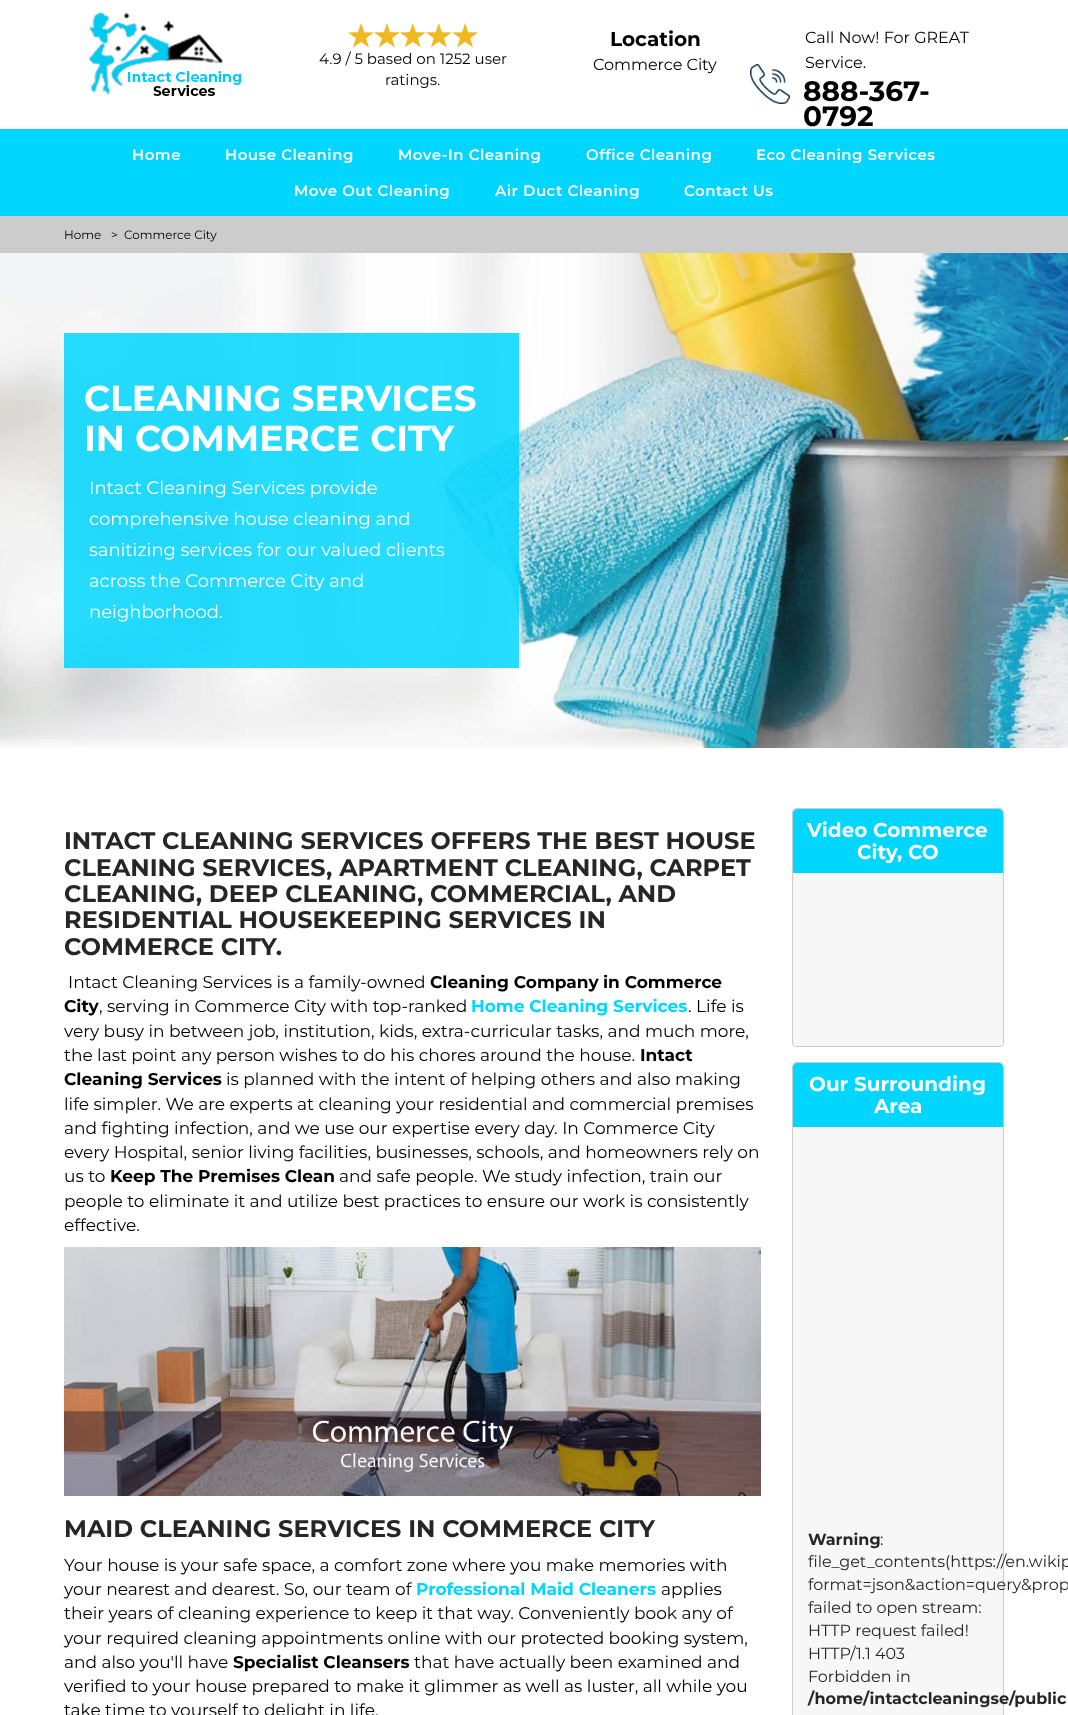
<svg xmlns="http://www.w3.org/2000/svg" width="1068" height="1715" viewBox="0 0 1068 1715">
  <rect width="100%" height="100%" fill="#ffffff"/>
  <image x="88" y="9" width="153" height="87" href="img1.png"/>
  <image x="348" y="23" width="130" height="25" href="img2.png"/>
  <text x="319" y="64" font-family="Montserrat" font-size="15" fill="#000000">4.9 / 5 based on 1252 user</text>
  <text x="385" y="85" font-family="Montserrat" font-size="15" fill="#000000">ratings.</text>
  <text x="610" y="46" font-family="Montserrat" font-size="20" font-weight="bold" fill="#000000">Location</text>
  <text x="593" y="70" font-family="Montserrat" font-size="16" fill="#000000">Commerce City</text>
  <text x="805" y="43" font-family="Montserrat" font-size="16" fill="#000000">Call Now! For GREAT</text>
  <text x="805" y="68" font-family="Montserrat" font-size="16" fill="#000000">Service.</text>
  <image x="750" y="64" width="40" height="40" href="img3.png"/>
  <text x="803" y="101" font-family="Montserrat" font-size="28" font-weight="bold" fill="#000000">888-367-</text>
  <text x="803" y="126" font-family="Montserrat" font-size="28" font-weight="bold" fill="#000000">0792</text>
  <rect x="0" y="129" width="1068" height="87" fill="#00d6ff"/>
  <text x="132" y="160" font-family="Montserrat" font-size="15" font-weight="600" letter-spacing="0.5" fill="#ffffff">Home</text>
  <text x="225" y="160" font-family="Montserrat" font-size="15" font-weight="600" letter-spacing="0.5" fill="#ffffff">House Cleaning</text>
  <text x="398" y="160" font-family="Montserrat" font-size="15" font-weight="600" letter-spacing="0.5" fill="#ffffff">Move-In Cleaning</text>
  <text x="586" y="160" font-family="Montserrat" font-size="15" font-weight="600" letter-spacing="0.5" fill="#ffffff">Office Cleaning</text>
  <text x="756" y="160" font-family="Montserrat" font-size="15" font-weight="600" letter-spacing="0.5" fill="#ffffff">Eco Cleaning Services</text>
  <text x="294" y="196" font-family="Montserrat" font-size="15" font-weight="600" letter-spacing="0.5" fill="#ffffff">Move Out Cleaning</text>
  <text x="495" y="196" font-family="Montserrat" font-size="15" font-weight="600" letter-spacing="0.5" fill="#ffffff">Air Duct Cleaning</text>
  <text x="684" y="196" font-family="Montserrat" font-size="15" font-weight="600" letter-spacing="0.5" fill="#ffffff">Contact Us</text>
  <rect x="0" y="216" width="1068" height="37" fill="#cccccc"/>
  <text x="64" y="239" font-family="Montserrat" font-size="12" fill="#000000">Home</text>
  <text x="111" y="239" font-family="Montserrat" font-size="12" fill="#000000">&gt;</text>
  <text x="124" y="239" font-family="Montserrat" font-size="12" fill="#000000">Commerce City</text>
  <image x="0" y="253" width="1068" height="495" href="img4.png"/>
  <rect x="64" y="333" width="455" height="335" fill="#00d6ff" fill-opacity="0.85"/>
  <text x="84" y="411" font-family="Montserrat" font-size="36" font-weight="bold" fill="#ffffff">CLEANING SERVICES</text>
  <text x="84" y="451" font-family="Montserrat" font-size="36" font-weight="bold" fill="#ffffff">IN COMMERCE CITY</text>
  <text x="89" y="494" font-family="Montserrat" font-size="18" fill="#ffffff">Intact Cleaning Services provide</text>
  <text x="89" y="525" font-family="Montserrat" font-size="18" fill="#ffffff">comprehensive house cleaning and</text>
  <text x="89" y="556" font-family="Montserrat" font-size="18" fill="#ffffff">sanitizing services for our valued clients</text>
  <text x="89" y="587" font-family="Montserrat" font-size="18" fill="#ffffff">across the Commerce City and</text>
  <text x="89" y="618" font-family="Montserrat" font-size="18" fill="#ffffff">neighborhood.</text>
  <text x="64" y="849" font-family="Montserrat" font-size="24" font-weight="bold" fill="#262626">INTACT CLEANING SERVICES OFFERS THE BEST HOUSE</text>
  <text x="64" y="876" font-family="Montserrat" font-size="24" font-weight="bold" fill="#262626">CLEANING SERVICES, APARTMENT CLEANING, CARPET</text>
  <text x="64" y="902" font-family="Montserrat" font-size="24" font-weight="bold" fill="#262626">CLEANING, DEEP CLEANING, COMMERCIAL, AND</text>
  <text x="64" y="928" font-family="Montserrat" font-size="24" font-weight="bold" fill="#262626">RESIDENTIAL HOUSEKEEPING SERVICES IN</text>
  <text x="64" y="955" font-family="Montserrat" font-size="24" font-weight="bold" fill="#262626">COMMERCE CITY.</text>
  <text x="68" y="988" font-family="Montserrat" font-size="17" fill="#000000">Intact Cleaning Services is a family-owned</text>
  <text x="430" y="988" font-family="Montserrat" font-size="17" font-weight="bold" fill="#000000">Cleaning Company</text>
  <text x="603" y="988" font-family="Montserrat" font-size="17" font-weight="bold" fill="#000000">in Commerce</text>
  <text x="64" y="1012" font-family="Montserrat" font-size="17" font-weight="bold" fill="#000000">City</text>
  <text x="99" y="1012" font-family="Montserrat" font-size="17" fill="#000000">, serving in Commerce City with top-ranked</text>
  <text x="471" y="1012" font-family="Montserrat" font-size="17" font-weight="bold" fill="#00d6ff">Home Cleaning Services</text>
  <text x="688" y="1012" font-family="Montserrat" font-size="17" fill="#000000">. Life is</text>
  <text x="64" y="1037" font-family="Montserrat" font-size="17" fill="#000000">very busy in between job, institution, kids, extra-curricular tasks, and much more,</text>
  <text x="64" y="1061" font-family="Montserrat" font-size="17" fill="#000000">the last point any person wishes to do his chores around the house.</text>
  <text x="640" y="1061" font-family="Montserrat" font-size="17" font-weight="bold" fill="#000000">Intact</text>
  <text x="64" y="1085" font-family="Montserrat" font-size="17" font-weight="bold" fill="#000000">Cleaning Services</text>
  <text x="226" y="1085" font-family="Montserrat" font-size="17" fill="#000000">is planned with the intent of helping others and also making</text>
  <text x="64" y="1110" font-family="Montserrat" font-size="17" fill="#000000">life simpler. We are experts at cleaning your residential and commercial premises</text>
  <text x="64" y="1134" font-family="Montserrat" font-size="17" fill="#000000">and fighting infection, and we use our expertise every day. In Commerce City</text>
  <text x="64" y="1158" font-family="Montserrat" font-size="17" fill="#000000">every Hospital, senior living facilities, businesses, schools, and homeowners rely on</text>
  <text x="64" y="1182" font-family="Montserrat" font-size="17" fill="#000000">us to</text>
  <text x="110" y="1182" font-family="Montserrat" font-size="17" font-weight="bold" fill="#000000">Keep The Premises Clean</text>
  <text x="339" y="1182" font-family="Montserrat" font-size="17" fill="#000000">and safe people. We study infection, train our</text>
  <text x="64" y="1207" font-family="Montserrat" font-size="17" fill="#000000">people to eliminate it and utilize best practices to ensure our work is consistently</text>
  <text x="64" y="1231" font-family="Montserrat" font-size="17" fill="#000000">effective.</text>
  <image x="64" y="1247" width="697" height="249" href="img5.png"/>
  <text x="64" y="1537" font-family="Montserrat" font-size="24" font-weight="bold" fill="#262626">MAID CLEANING SERVICES IN COMMERCE CITY</text>
  <text x="64" y="1571" font-family="Montserrat" font-size="17" fill="#000000">Your house is your safe space, a comfort zone where you make memories with</text>
  <text x="64" y="1595" font-family="Montserrat" font-size="17" fill="#000000">your nearest and dearest. So, our team of</text>
  <text x="416" y="1595" font-family="Montserrat" font-size="17" font-weight="bold" fill="#00d6ff">Professional Maid Cleaners</text>
  <text x="661" y="1595" font-family="Montserrat" font-size="17" fill="#000000">applies</text>
  <text x="64" y="1619" font-family="Montserrat" font-size="17" fill="#000000">their years of cleaning experience to keep it that way. Conveniently book any of</text>
  <text x="64" y="1644" font-family="Montserrat" font-size="17" fill="#000000">your required cleaning appointments online with our protected booking system,</text>
  <text x="64" y="1668" font-family="Montserrat" font-size="17" fill="#000000">and also you'll have</text>
  <text x="233" y="1668" font-family="Montserrat" font-size="17" font-weight="bold" fill="#000000">Specialist Cleansers</text>
  <text x="414" y="1668" font-family="Montserrat" font-size="17" fill="#000000">that have actually been examined and</text>
  <text x="64" y="1692" font-family="Montserrat" font-size="17" fill="#000000">verified to your house prepared to make it glimmer as well as luster, all while you</text>
  <text x="64" y="1716" font-family="Montserrat" font-size="17" fill="#000000">take time to yourself to delight in life.</text>
  <rect x="792.5" y="808.5" width="211" height="238" rx="3.5" fill="#f7f7f7" stroke="#cccccc"/>
  <path d="M797 809H999C1001 809 1003 811 1003 813V873H793V813C793 811 795 809 797 809Z" fill="#00d6ff"/>
  <text x="807" y="837" font-family="Montserrat" font-size="20" font-weight="bold" fill="#ffffff">Video Commerce</text>
  <text x="857" y="859" font-family="Montserrat" font-size="20" font-weight="bold" fill="#ffffff">City, CO</text>
  <path d="M793 873H1003V1042C1003 1044 1001 1046 999 1046H797C795 1046 793 1044 793 1042Z" fill="#f7f7f7"/>
  <rect x="792.5" y="1062.5" width="211" height="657" rx="3.5" fill="#f7f7f7" stroke="#cccccc"/>
  <path d="M797 1063H999C1001 1063 1003 1065 1003 1067V1127H793V1067C793 1065 795 1063 797 1063Z" fill="#00d6ff"/>
  <text x="809" y="1091" font-family="Montserrat" font-size="20" font-weight="bold" fill="#ffffff">Our Surrounding</text>
  <text x="874" y="1113" font-family="Montserrat" font-size="20" font-weight="bold" fill="#ffffff">Area</text>
  <text x="808" y="1545" font-family="Montserrat" font-size="16" font-weight="bold" fill="#262626">Warning</text>
  <text x="880" y="1545" font-family="Montserrat" font-size="16" fill="#262626">:</text>
  <text x="808" y="1567" font-family="Montserrat" font-size="16" fill="#262626">file_get_contents(https://en.wikip</text>
  <text x="808" y="1590" font-family="Montserrat" font-size="16" fill="#262626">format=json&amp;action=query&amp;prop</text>
  <text x="808" y="1613" font-family="Montserrat" font-size="16" fill="#262626">failed to open stream:</text>
  <text x="808" y="1636" font-family="Montserrat" font-size="16" fill="#262626">HTTP request failed!</text>
  <text x="808" y="1659" font-family="Montserrat" font-size="16" fill="#262626">HTTP/1.1 403</text>
  <text x="808" y="1682" font-family="Montserrat" font-size="16" fill="#262626">Forbidden in</text>
  <text x="808" y="1704" font-family="Montserrat" font-size="16" font-weight="bold" fill="#262626">/home/intactcleaningse/public</text>
</svg>
